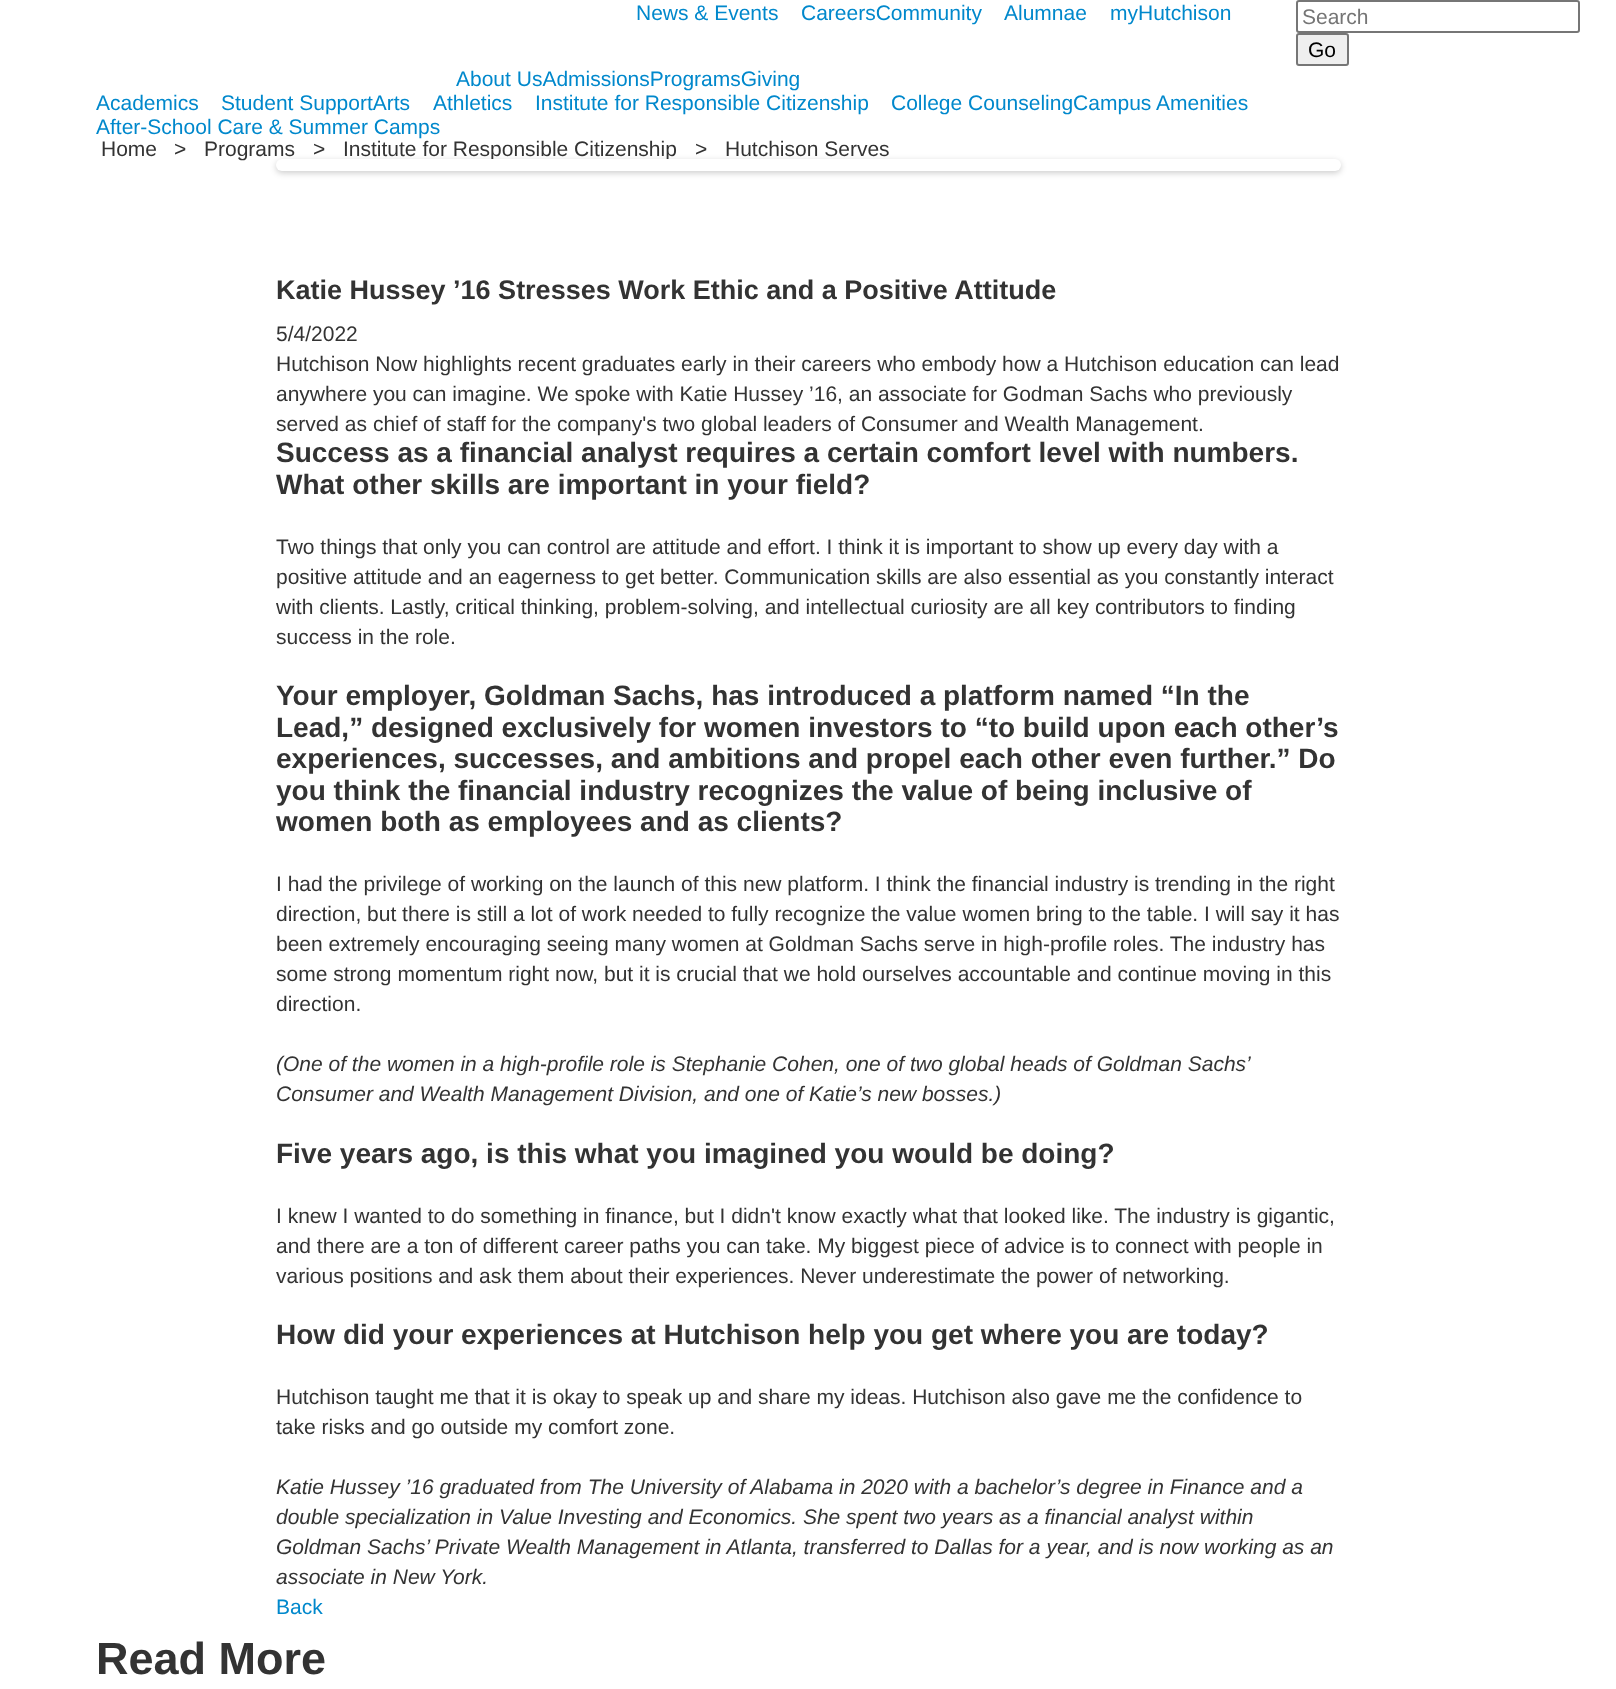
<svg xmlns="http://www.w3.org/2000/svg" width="1616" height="1689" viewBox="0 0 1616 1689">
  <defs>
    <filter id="blur1" x="-50%" y="-200%" width="200%" height="500%"><feGaussianBlur stdDeviation="3"/></filter>
  </defs>
  <rect width="100%" height="100%" fill="#ffffff"/>
  <text x="636" y="20" font-family="Liberation Sans" font-size="21" fill="#0088cc">News &amp; Events</text>
  <text x="801" y="20" font-family="Liberation Sans" font-size="21" fill="#0088cc">CareersCommunity</text>
  <text x="1004" y="20" font-family="Liberation Sans" font-size="21" fill="#0088cc">Alumnae</text>
  <text x="1110" y="20" font-family="Liberation Sans" font-size="21" fill="#0088cc">myHutchison</text>
  <rect x="1297" y="1" width="282" height="31" rx="2" fill="none" stroke="#767676" stroke-width="2"/>
  <text x="1302" y="24" font-family="Liberation Sans" font-size="21" fill="#757575">Search</text>
  <rect x="1297" y="34" width="51" height="31" rx="2" fill="#efefef" stroke="#767676" stroke-width="2"/>
  <text x="1308" y="57" font-family="Liberation Sans" font-size="21" fill="#000000">Go</text>
  <text x="456" y="86" font-family="Liberation Sans" font-size="21" fill="#0088cc">About UsAdmissionsProgramsGiving</text>
  <text x="96" y="110" font-family="Liberation Sans" font-size="21" fill="#0088cc">Academics</text>
  <text x="221" y="110" font-family="Liberation Sans" font-size="21" fill="#0088cc">Student SupportArts</text>
  <text x="433" y="110" font-family="Liberation Sans" font-size="21" fill="#0088cc">Athletics</text>
  <text x="535" y="110" font-family="Liberation Sans" font-size="21" fill="#0088cc">Institute for Responsible Citizenship</text>
  <text x="891" y="110" font-family="Liberation Sans" font-size="21" fill="#0088cc">College CounselingCampus Amenities</text>
  <text x="96" y="134" font-family="Liberation Sans" font-size="21" fill="#0088cc">After-School Care &amp; Summer Camps</text>
  <text x="101" y="156" font-family="Liberation Sans" font-size="21" fill="#333333">Home</text>
  <text x="174" y="156" font-family="Liberation Sans" font-size="21" fill="#333333">&gt;</text>
  <text x="204" y="156" font-family="Liberation Sans" font-size="21" fill="#333333">Programs</text>
  <text x="313" y="156" font-family="Liberation Sans" font-size="21" fill="#333333">&gt;</text>
  <text x="343" y="156" font-family="Liberation Sans" font-size="21" fill="#333333">Institute for Responsible Citizenship</text>
  <text x="695" y="156" font-family="Liberation Sans" font-size="21" fill="#333333">&gt;</text>
  <text x="725" y="156" font-family="Liberation Sans" font-size="21" fill="#333333">Hutchison Serves</text>
  <rect x="276" y="161" width="1065" height="12" rx="6" fill="#000000" fill-opacity="0.2" filter="url(#blur1)"/>
  <rect x="276" y="159" width="1065" height="12" rx="6" fill="#ffffff"/>
  <text x="276" y="299" font-family="Liberation Sans" font-size="27" font-weight="bold" fill="#333333">Katie Hussey ’16 Stresses Work Ethic and a Positive Attitude</text>
  <text x="276" y="341" font-family="Liberation Sans" font-size="21" fill="#333333">5/4/2022</text>
  <text x="276" y="371" font-family="Liberation Sans" font-size="21" fill="#333333">Hutchison Now highlights recent graduates early in their careers who embody how a Hutchison education can lead</text>
  <text x="276" y="401" font-family="Liberation Sans" font-size="21" fill="#333333">anywhere you can imagine. We spoke with Katie Hussey ’16, an associate for Godman Sachs who previously</text>
  <text x="276" y="431" font-family="Liberation Sans" font-size="21" fill="#333333">served as chief of staff for the company's two global leaders of Consumer and Wealth Management.</text>
  <text x="276" y="462" font-family="Liberation Sans" font-size="28" font-weight="bold" fill="#333333">Success as a financial analyst requires a certain comfort level with numbers.</text>
  <text x="276" y="494" font-family="Liberation Sans" font-size="28" font-weight="bold" fill="#333333">What other skills are important in your field?</text>
  <text x="276" y="554" font-family="Liberation Sans" font-size="21" fill="#333333">Two things that only you can control are attitude and effort. I think it is important to show up every day with a</text>
  <text x="276" y="584" font-family="Liberation Sans" font-size="21" fill="#333333">positive attitude and an eagerness to get better. Communication skills are also essential as you constantly interact</text>
  <text x="276" y="614" font-family="Liberation Sans" font-size="21" fill="#333333">with clients. Lastly, critical thinking, problem-solving, and intellectual curiosity are all key contributors to finding</text>
  <text x="276" y="644" font-family="Liberation Sans" font-size="21" fill="#333333">success in the role.</text>
  <text x="276" y="705" font-family="Liberation Sans" font-size="28" font-weight="bold" fill="#333333">Your employer, Goldman Sachs, has introduced a platform named “In the</text>
  <text x="276" y="737" font-family="Liberation Sans" font-size="28" font-weight="bold" fill="#333333">Lead,” designed exclusively for women investors to “to build upon each other’s</text>
  <text x="276" y="768" font-family="Liberation Sans" font-size="28" font-weight="bold" fill="#333333">experiences, successes, and ambitions and propel each other even further.” Do</text>
  <text x="276" y="800" font-family="Liberation Sans" font-size="28" font-weight="bold" fill="#333333">you think the financial industry recognizes the value of being inclusive of</text>
  <text x="276" y="831" font-family="Liberation Sans" font-size="28" font-weight="bold" fill="#333333">women both as employees and as clients?</text>
  <text x="276" y="891" font-family="Liberation Sans" font-size="21" fill="#333333">I had the privilege of working on the launch of this new platform. I think the financial industry is trending in the right</text>
  <text x="276" y="921" font-family="Liberation Sans" font-size="21" fill="#333333">direction, but there is still a lot of work needed to fully recognize the value women bring to the table. I will say it has</text>
  <text x="276" y="951" font-family="Liberation Sans" font-size="21" fill="#333333">been extremely encouraging seeing many women at Goldman Sachs serve in high-profile roles. The industry has</text>
  <text x="276" y="981" font-family="Liberation Sans" font-size="21" fill="#333333">some strong momentum right now, but it is crucial that we hold ourselves accountable and continue moving in this</text>
  <text x="276" y="1011" font-family="Liberation Sans" font-size="21" fill="#333333">direction.</text>
  <text x="276" y="1071" font-family="Liberation Sans" font-size="21" font-style="italic" fill="#333333">(One of the women in a high-profile role is Stephanie Cohen, one of two global heads of Goldman Sachs’</text>
  <text x="276" y="1101" font-family="Liberation Sans" font-size="21" font-style="italic" fill="#333333">Consumer and Wealth Management Division, and one of Katie’s new bosses.)</text>
  <text x="276" y="1163" font-family="Liberation Sans" font-size="28" font-weight="bold" fill="#333333">Five years ago, is this what you imagined you would be doing?</text>
  <text x="276" y="1223" font-family="Liberation Sans" font-size="21" fill="#333333">I knew I wanted to do something in finance, but I didn't know exactly what that looked like. The industry is gigantic,</text>
  <text x="276" y="1253" font-family="Liberation Sans" font-size="21" fill="#333333">and there are a ton of different career paths you can take. My biggest piece of advice is to connect with people in</text>
  <text x="276" y="1283" font-family="Liberation Sans" font-size="21" fill="#333333">various positions and ask them about their experiences. Never underestimate the power of networking.</text>
  <text x="276" y="1344" font-family="Liberation Sans" font-size="28" font-weight="bold" fill="#333333">How did your experiences at Hutchison help you get where you are today?</text>
  <text x="276" y="1404" font-family="Liberation Sans" font-size="21" fill="#333333">Hutchison taught me that it is okay to speak up and share my ideas. Hutchison also gave me the confidence to</text>
  <text x="276" y="1434" font-family="Liberation Sans" font-size="21" fill="#333333">take risks and go outside my comfort zone.</text>
  <text x="276" y="1494" font-family="Liberation Sans" font-size="21" font-style="italic" fill="#333333">Katie Hussey ’16 graduated from The University of Alabama in 2020 with a bachelor’s degree in Finance and a</text>
  <text x="276" y="1524" font-family="Liberation Sans" font-size="21" font-style="italic" fill="#333333">double specialization in Value Investing and Economics. She spent two years as a financial analyst within</text>
  <text x="276" y="1554" font-family="Liberation Sans" font-size="21" font-style="italic" fill="#333333">Goldman Sachs’ Private Wealth Management in Atlanta, transferred to Dallas for a year, and is now working as an</text>
  <text x="276" y="1584" font-family="Liberation Sans" font-size="21" font-style="italic" fill="#333333">associate in New York.</text>
  <text x="276" y="1614" font-family="Liberation Sans" font-size="21" fill="#0088cc">Back</text>
  <text x="96" y="1674" font-family="Liberation Sans" font-size="45" font-weight="bold" fill="#333333">Read More</text>
</svg>
